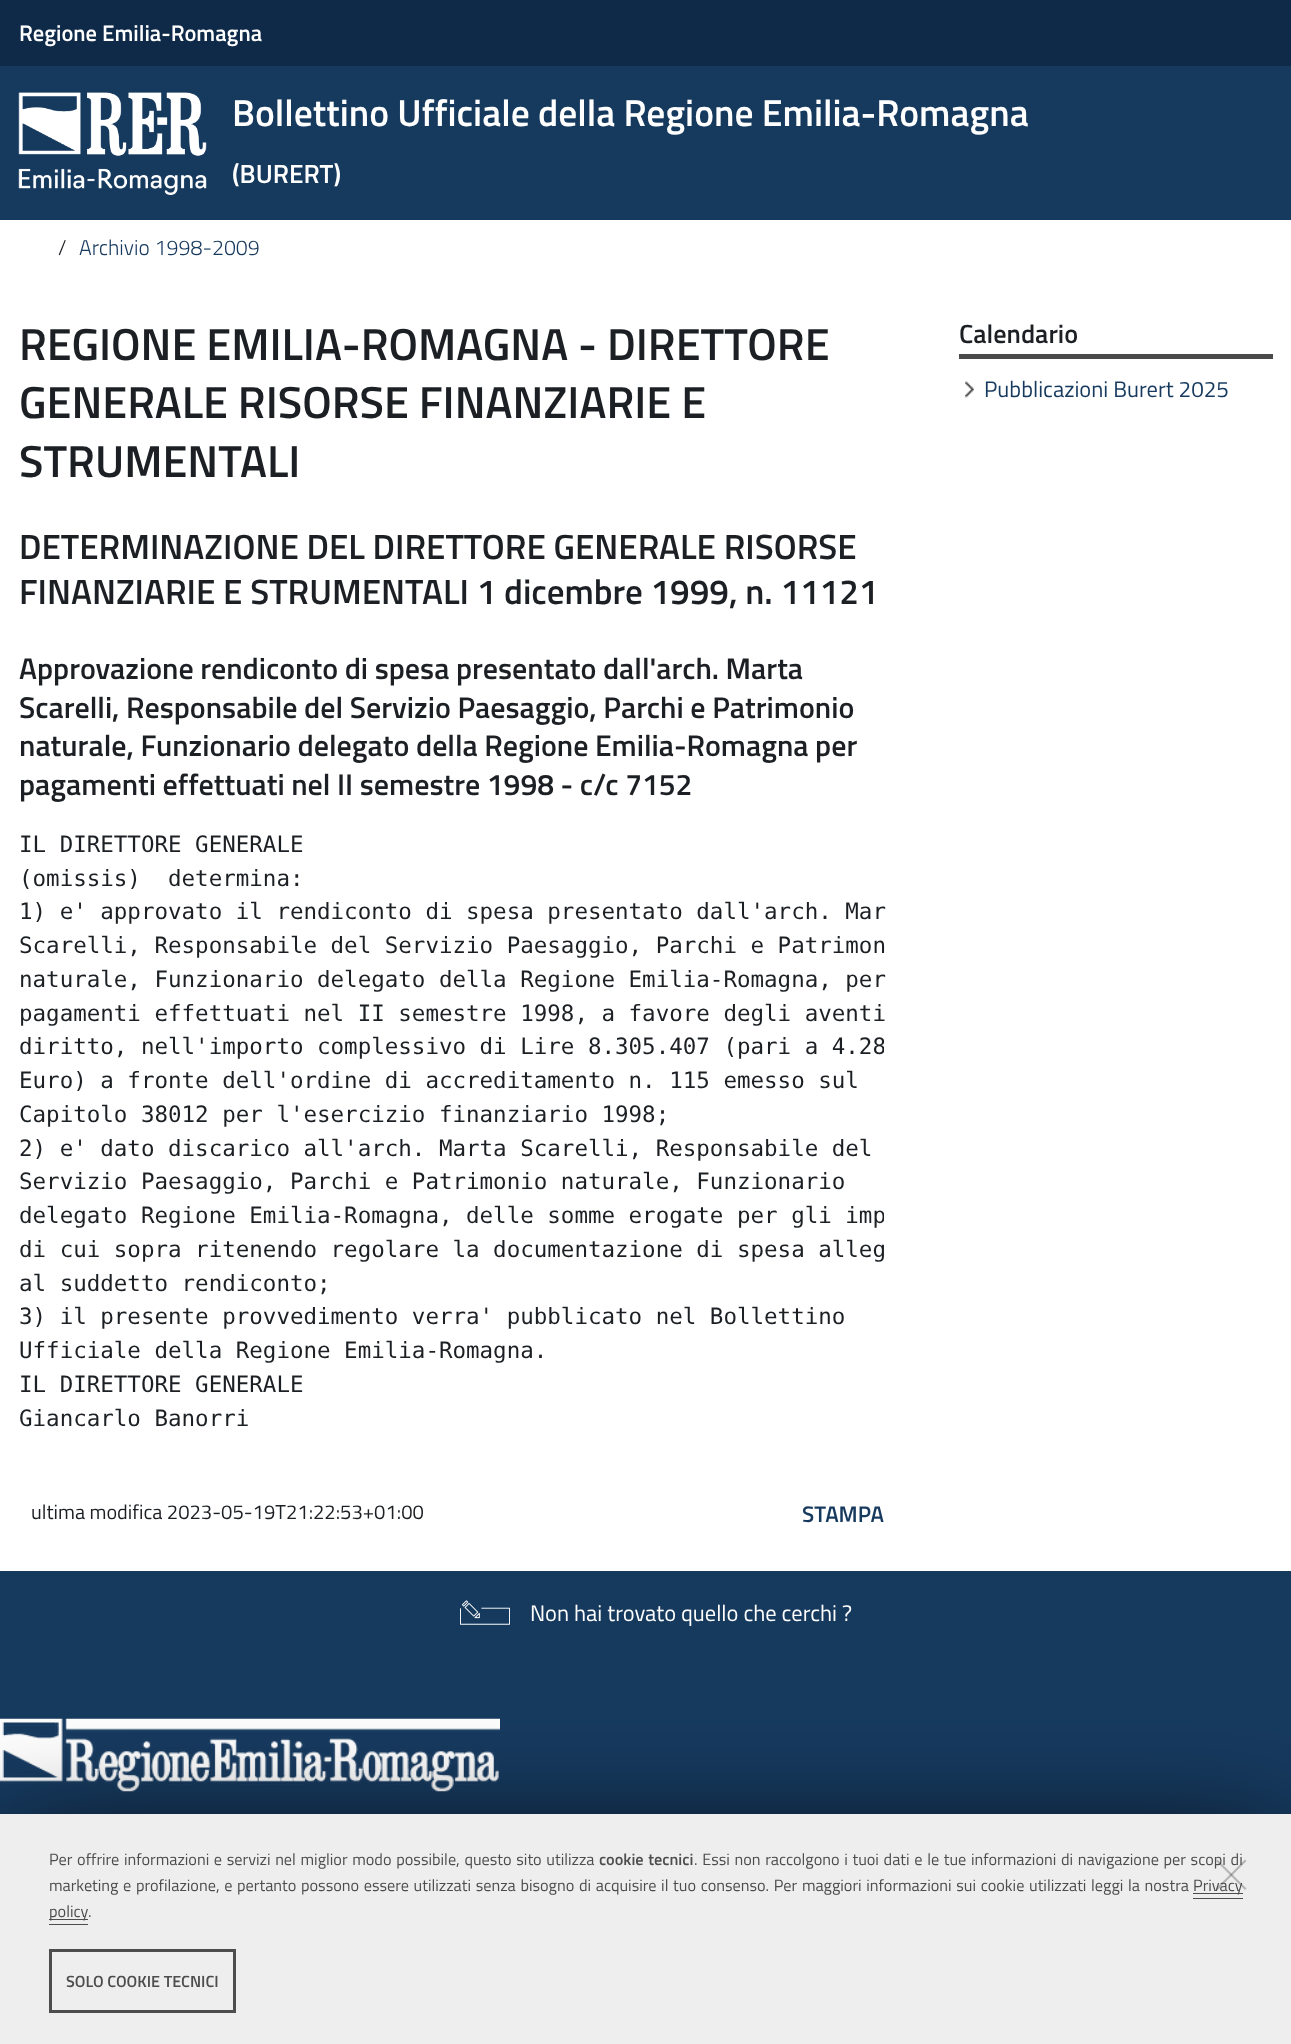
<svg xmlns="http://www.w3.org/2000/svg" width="1291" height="2044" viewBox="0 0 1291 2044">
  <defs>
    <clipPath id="clip1"><rect x="19" y="828" width="865" height="607"/></clipPath>
    <filter id="blur1" x="-50%" y="-200%" width="200%" height="500%"><feGaussianBlur stdDeviation="56"/></filter>
  </defs>
  <rect width="100%" height="100%" fill="#ffffff"/>
  <rect x="0" y="66" width="1291" height="154" fill="#16395e"/>
  <rect x="0" y="0" width="1291" height="66" fill="#0f2a48"/>
  <text x="19" y="41" font-family="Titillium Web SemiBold" font-size="22.5" font-weight="600" fill="#ffffff">Regione Emilia-Romagna</text>
  <image x="18" y="92" width="189" height="103" href="img1.png"/>
  <text x="232" y="126" font-family="Titillium Web SemiBold" font-size="37.5" font-weight="600" fill="#ffffff">Bollettino Ufficiale della Regione Emilia-Romagna</text>
  <text x="232" y="183" font-family="Titillium Web SemiBold" font-size="26.25" font-weight="600" fill="#ffffff">(BURERT)</text>
  <text x="58" y="255" font-family="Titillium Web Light" font-size="21.4" font-weight="300" fill="#1c2024">/</text>
  <text x="79" y="255" font-family="Titillium Web Light" font-size="21.4" font-weight="300" fill="#16395e">Archivio 1998-2009</text>
  <text x="19" y="360" font-family="Titillium Web SemiBold" font-size="45" font-weight="600" fill="#1c2024">REGIONE EMILIA-ROMAGNA - DIRETTORE</text>
  <text x="19" y="418" font-family="Titillium Web SemiBold" font-size="45" font-weight="600" fill="#1c2024">GENERALE RISORSE FINANZIARIE E</text>
  <text x="19" y="477" font-family="Titillium Web SemiBold" font-size="45" font-weight="600" fill="#1c2024">STRUMENTALI</text>
  <text x="19" y="559" font-family="Titillium Web SemiBold" font-size="35" font-weight="600" fill="#1c2024">DETERMINAZIONE DEL DIRETTORE GENERALE RISORSE</text>
  <text x="19" y="604" font-family="Titillium Web SemiBold" font-size="35" font-weight="600" fill="#1c2024">FINANZIARIE E STRUMENTALI 1 dicembre 1999, n. 11121</text>
  <text x="19" y="679" font-family="Titillium Web SemiBold" font-size="30" font-weight="600" fill="#1c2024">Approvazione rendiconto di spesa presentato dall'arch. Marta</text>
  <text x="19" y="718" font-family="Titillium Web SemiBold" font-size="30" font-weight="600" fill="#1c2024">Scarelli, Responsabile del Servizio Paesaggio, Parchi e Patrimonio</text>
  <text x="19" y="756" font-family="Titillium Web SemiBold" font-size="30" font-weight="600" fill="#1c2024">naturale, Funzionario delegato della Regione Emilia-Romagna per</text>
  <text x="19" y="795" font-family="Titillium Web SemiBold" font-size="30" font-weight="600" fill="#1c2024">pagamenti effettuati nel II semestre 1998 - c/c 7152</text>
  <text x="19" y="852" font-family="DejaVu Sans Mono" font-size="22.5" fill="#1c2024">IL DIRETTORE GENERALE</text>
  <text x="19" y="886" font-family="DejaVu Sans Mono" font-size="22.5" fill="#1c2024" xml:space="preserve">(omissis)  determina:</text>
  <text x="19" y="919" font-family="DejaVu Sans Mono" font-size="22.5" fill="#1c2024">1) e' approvato il rendiconto di spesa presentato dall'arch. Mar</text>
  <text x="19" y="953" font-family="DejaVu Sans Mono" font-size="22.5" fill="#1c2024">Scarelli, Responsabile del Servizio Paesaggio, Parchi e Patrimon</text>
  <text x="19" y="987" font-family="DejaVu Sans Mono" font-size="22.5" fill="#1c2024">naturale, Funzionario delegato della Regione Emilia-Romagna, per</text>
  <text x="19" y="1021" font-family="DejaVu Sans Mono" font-size="22.5" fill="#1c2024">pagamenti effettuati nel II semestre 1998, a favore degli aventi</text>
  <g clip-path="url(#clip1)">
    <text x="19" y="1054" font-family="DejaVu Sans Mono" font-size="22.5" fill="#1c2024">diritto, nell'importo complessivo di Lire 8.305.407 (pari a 4.28</text>
  </g>
  <text x="19" y="1088" font-family="DejaVu Sans Mono" font-size="22.5" fill="#1c2024">Euro) a fronte dell'ordine di accreditamento n. 115 emesso sul</text>
  <text x="19" y="1122" font-family="DejaVu Sans Mono" font-size="22.5" fill="#1c2024">Capitolo 38012 per l'esercizio finanziario 1998;</text>
  <text x="19" y="1156" font-family="DejaVu Sans Mono" font-size="22.5" fill="#1c2024">2) e' dato discarico all'arch. Marta Scarelli, Responsabile del</text>
  <text x="19" y="1189" font-family="DejaVu Sans Mono" font-size="22.5" fill="#1c2024">Servizio Paesaggio, Parchi e Patrimonio naturale, Funzionario</text>
  <g clip-path="url(#clip1)">
    <text x="19" y="1223" font-family="DejaVu Sans Mono" font-size="22.5" fill="#1c2024">delegato Regione Emilia-Romagna, delle somme erogate per gli imp</text>
  </g>
  <text x="19" y="1257" font-family="DejaVu Sans Mono" font-size="22.5" fill="#1c2024">di cui sopra ritenendo regolare la documentazione di spesa alleg</text>
  <text x="19" y="1291" font-family="DejaVu Sans Mono" font-size="22.5" fill="#1c2024">al suddetto rendiconto;</text>
  <text x="19" y="1324" font-family="DejaVu Sans Mono" font-size="22.5" fill="#1c2024">3) il presente provvedimento verra' pubblicato nel Bollettino</text>
  <text x="19" y="1358" font-family="DejaVu Sans Mono" font-size="22.5" fill="#1c2024">Ufficiale della Regione Emilia-Romagna.</text>
  <text x="19" y="1392" font-family="DejaVu Sans Mono" font-size="22.5" fill="#1c2024">IL DIRETTORE GENERALE</text>
  <text x="19" y="1426" font-family="DejaVu Sans Mono" font-size="22.5" fill="#1c2024">Giancarlo Banorri</text>
  <text x="31" y="1519" font-family="Titillium Web" font-size="20.25" fill="#1c2024">ultima modifica 2023-05-19T21:22:53+01:00</text>
  <text x="802" y="1522" font-family="Titillium Web SemiBold" font-size="22.5" font-weight="600" fill="#16395e">STAMPA</text>
  <rect x="959" y="354" width="314" height="5" fill="#4a4a4a"/>
  <text x="959" y="343" font-family="Titillium Web SemiBold" font-size="26.25" font-weight="600" fill="#1c2024">Calendario</text>
  <image x="965" y="381" width="9" height="17" href="img2.png"/>
  <text x="984" y="397" font-family="Titillium Web" font-size="22.5" fill="#16395e">Pubblicazioni Burert 2025</text>
  <rect x="0" y="1571" width="1291" height="243" fill="#16395e"/>
  <image x="460" y="1600" width="50" height="25" href="img3.png"/>
  <text x="530" y="1621" font-family="Titillium Web" font-size="22.5" fill="#ffffff">Non hai trovato quello che cerchi ?</text>
  <image x="0" y="1718" width="500" height="74" href="img4.png"/>
  <rect x="11" y="1848" width="1269" height="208" fill="#000000" filter="url(#blur1)"/>
  <rect x="0" y="1814" width="1291" height="230" fill="#eeeeee"/>
  <text x="49" y="1865" word-spacing="1.1" font-family="Titillium Web" font-size="16.25" fill="#4d4d4d">Per offrire informazioni e servizi nel miglior modo possibile, questo sito utilizza</text>
  <text x="599" y="1865" word-spacing="1" font-family="Titillium Web SemiBold" font-size="16.25" font-weight="600" fill="#4d4d4d">cookie tecnici</text>
  <text x="694" y="1865" word-spacing="1.1" font-family="Titillium Web" font-size="16.25" fill="#4d4d4d">. Essi non raccolgono i tuoi dati e le tue informazioni di navigazione per scopi di</text>
  <text x="49" y="1891" word-spacing="1.1" font-family="Titillium Web" font-size="16.25" fill="#4d4d4d">marketing e profilazione, e pertanto possono essere utilizzati senza bisogno di acquisire il tuo consenso. Per maggiori informazioni sui cookie utilizzati leggi la nostra</text>
  <rect x="1193" y="1893" width="50" height="1" fill="#4d4d4d"/>
  <text x="1193" y="1891" font-family="Titillium Web" font-size="16.25" fill="#4d4d4d">Privacy</text>
  <rect x="1193" y="1898" width="50" height="1" fill="#4d4d4d"/>
  <rect x="49" y="1919" width="39" height="1" fill="#4d4d4d"/>
  <text x="49" y="1917" font-family="Titillium Web" font-size="16.25" fill="#4d4d4d">policy</text>
  <rect x="49" y="1924" width="39" height="1" fill="#4d4d4d"/>
  <text x="88" y="1917" font-family="Titillium Web" font-size="16.25" fill="#4d4d4d">.</text>
  <path d="M1245 1859.5L1246.5 1861L1217.5 1890L1216 1888.5Z" fill="#333333" fill-opacity="0.3"/>
  <path d="M1216 1861L1217.5 1859.5L1246.5 1888.5L1245 1890Z" fill="#333333" fill-opacity="0.3"/>
  <rect x="50.5" y="1950.5" width="184" height="61" fill="none" stroke="#4d4d4d" stroke-width="3"/>
  <text x="66" y="1987" font-family="Titillium Web SemiBold" font-size="16.25" font-weight="600" fill="#4d4d4d">SOLO COOKIE TECNICI</text>
</svg>
